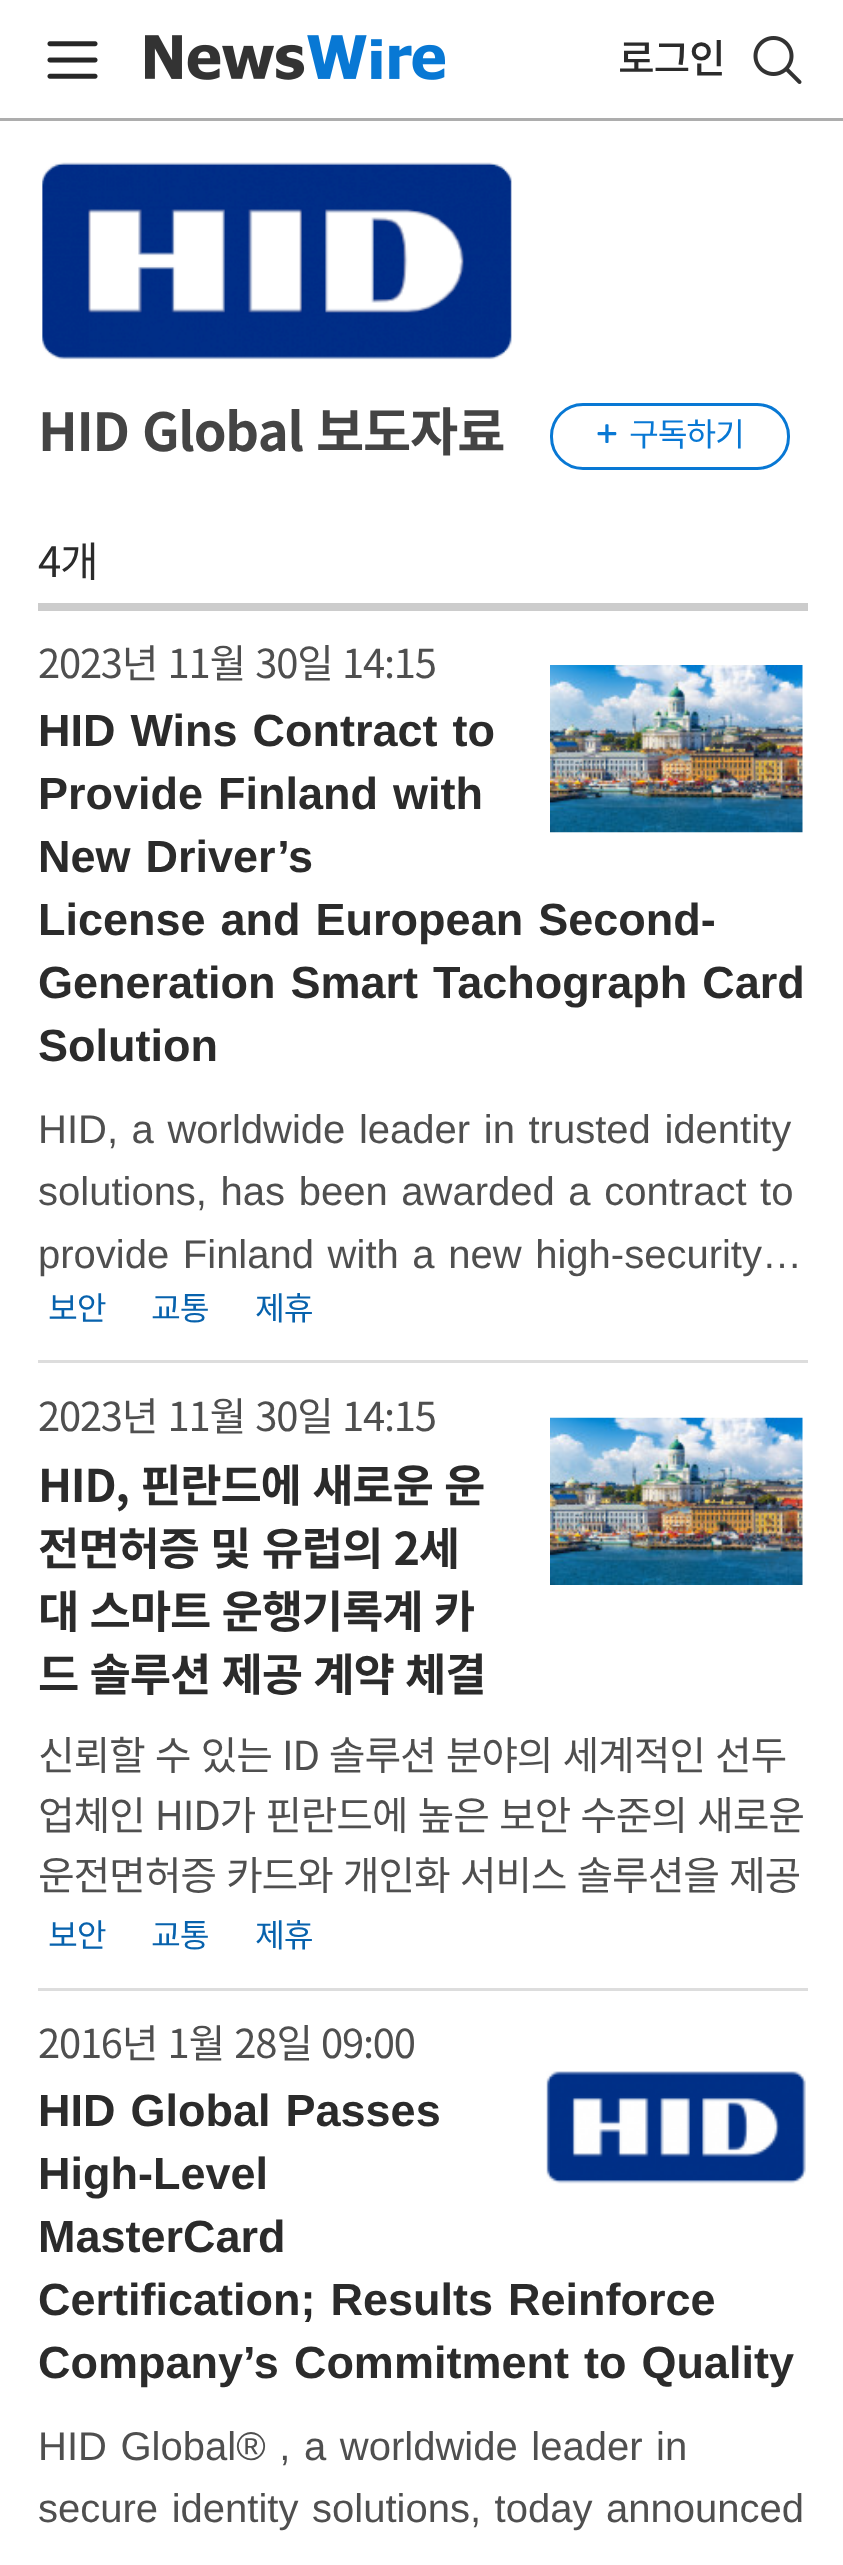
<svg xmlns="http://www.w3.org/2000/svg" width="843" height="2565" viewBox="0 0 843 2565">
  <rect width="100%" height="100%" fill="#ffffff"/>
  <rect x="0" y="118" width="843" height="3" fill="#adadad"/>
  <image x="47" y="41" width="51" height="38" href="img1.png"/>
  <image x="145" y="35" width="300" height="45" href="img2.png"/>
  <text x="618" y="73" font-family="Noto Sans KR" font-size="40" font-weight="500" letter-spacing="-1.25" fill="#2b2b2b">로그인</text>
  <image x="753" y="36" width="49" height="48" href="img3.png"/>
  <image x="42" y="162" width="470" height="198" href="img4.png"/>
  <text x="38" y="451" word-spacing="2.5" font-family="Noto Sans KR" font-size="52.5" font-weight="bold" letter-spacing="-1.25" fill="#444444">HID Global</text>
  <text x="316" y="451" font-family="Noto Sans KR" font-size="52.5" font-weight="bold" letter-spacing="-1.25" fill="#444444">보도자료</text>
  <rect x="551.5" y="404.5" width="237" height="64" rx="31.5" fill="none" stroke="#0878d4" stroke-width="3"/>
  <image x="597" y="424" width="20" height="19" href="img5.png"/>
  <text x="629" y="446" font-family="Noto Sans KR" font-size="32.5" letter-spacing="-1.25" fill="#0878d4">구독하기</text>
  <rect x="38" y="603" width="770" height="8" fill="#cccccc"/>
  <text x="38" y="577" font-family="Noto Sans KR" font-size="42" letter-spacing="-1.25" fill="#2b2b2b">4개</text>
  <rect x="38" y="1360" width="770" height="3" fill="#dddddd"/>
  <text x="38" y="678" word-spacing="2.5" font-family="Noto Sans KR" font-size="40" letter-spacing="-1.25" fill="#4f4f4f">2023년 11월 30일</text>
  <text x="342" y="678" font-family="Noto Sans KR" font-size="40" letter-spacing="-1.25" fill="#4f4f4f">14:15</text>
  <text x="38" y="746" word-spacing="2.5" font-family="Liberation Sans" font-size="45" font-weight="bold" fill="#2b2b2b">HID Wins Contract to</text>
  <text x="38" y="809" word-spacing="2.5" font-family="Liberation Sans" font-size="45" font-weight="bold" fill="#2b2b2b">Provide Finland with</text>
  <text x="38" y="872" word-spacing="2.5" font-family="Liberation Sans" font-size="45" font-weight="bold" fill="#2b2b2b">New Driver’s</text>
  <text x="38" y="935" word-spacing="2.5" font-family="Liberation Sans" font-size="45" font-weight="bold" fill="#2b2b2b">License and European Second-</text>
  <text x="38" y="998" word-spacing="2.5" font-family="Liberation Sans" font-size="45" font-weight="bold" fill="#2b2b2b">Generation Smart Tachograph Card</text>
  <text x="38" y="1061" font-family="Liberation Sans" font-size="45" font-weight="bold" fill="#2b2b2b">Solution</text>
  <text x="38" y="1143" word-spacing="2.5" font-family="Liberation Sans" font-size="40" fill="#4f4f4f">HID, a worldwide leader in trusted identity</text>
  <text x="38" y="1205" word-spacing="2.5" font-family="Liberation Sans" font-size="40" fill="#4f4f4f">solutions, has been awarded a contract to</text>
  <text x="38" y="1268" word-spacing="2.5" font-family="Liberation Sans" font-size="40" fill="#4f4f4f">provide Finland with a new high-security…</text>
  <text x="48" y="1320" font-family="Noto Sans KR" font-size="32.5" letter-spacing="-1.25" fill="#0762ad">보안</text>
  <text x="151" y="1320" font-family="Noto Sans KR" font-size="32.5" letter-spacing="-1.25" fill="#0762ad">교통</text>
  <text x="255" y="1320" font-family="Noto Sans KR" font-size="32.5" letter-spacing="-1.25" fill="#0762ad">제휴</text>
  <image x="550" y="665" width="253" height="168" href="img6.png"/>
  <rect x="38" y="1988" width="770" height="3" fill="#dddddd"/>
  <text x="38" y="1431" word-spacing="2.5" font-family="Noto Sans KR" font-size="40" letter-spacing="-1.25" fill="#4f4f4f">2023년 11월 30일</text>
  <text x="342" y="1431" font-family="Noto Sans KR" font-size="40" letter-spacing="-1.25" fill="#4f4f4f">14:15</text>
  <text x="38" y="1502" word-spacing="2.5" font-family="Noto Sans KR" font-size="45" font-weight="bold" letter-spacing="-1.25" fill="#2b2b2b">HID, 핀란드에 새로운 운</text>
  <text x="38" y="1565" word-spacing="2.5" font-family="Noto Sans KR" font-size="45" font-weight="bold" letter-spacing="-1.25" fill="#2b2b2b">전면허증 및 유럽의 2세</text>
  <text x="38" y="1628" word-spacing="2.5" font-family="Noto Sans KR" font-size="45" font-weight="bold" letter-spacing="-1.25" fill="#2b2b2b">대 스마트 운행기록계 카</text>
  <text x="38" y="1691" word-spacing="2.5" font-family="Noto Sans KR" font-size="45" font-weight="bold" letter-spacing="-1.25" fill="#2b2b2b">드 솔루션 제공 계약 체결</text>
  <text x="38" y="1770" word-spacing="2.5" font-family="Noto Sans KR" font-size="40" letter-spacing="-1.25" fill="#4f4f4f">신뢰할 수 있는 ID 솔루션 분야의 세계적인 선두</text>
  <text x="38" y="1830" word-spacing="2.5" font-family="Noto Sans KR" font-size="40" letter-spacing="-1.25" fill="#4f4f4f">업체인 HID가 핀란드에 높은 보안 수준의 새로운</text>
  <text x="38" y="1890" word-spacing="2.5" font-family="Noto Sans KR" font-size="40" letter-spacing="-1.25" fill="#4f4f4f">운전면허증 카드와 개인화 서비스 솔루션을 제공</text>
  <text x="48" y="1947" font-family="Noto Sans KR" font-size="32.5" letter-spacing="-1.25" fill="#0762ad">보안</text>
  <text x="151" y="1947" font-family="Noto Sans KR" font-size="32.5" letter-spacing="-1.25" fill="#0762ad">교통</text>
  <text x="255" y="1947" font-family="Noto Sans KR" font-size="32.5" letter-spacing="-1.25" fill="#0762ad">제휴</text>
  <image x="550" y="1417" width="253" height="168" href="img7.png"/>
  <text x="38" y="2058" word-spacing="2.5" font-family="Noto Sans KR" font-size="40" letter-spacing="-1.25" fill="#4f4f4f">2016년 1월 28일</text>
  <text x="321" y="2058" font-family="Noto Sans KR" font-size="40" letter-spacing="-1.25" fill="#4f4f4f">09:00</text>
  <text x="38" y="2126" word-spacing="2.5" font-family="Liberation Sans" font-size="45" font-weight="bold" fill="#2b2b2b">HID Global Passes</text>
  <text x="38" y="2189" font-family="Liberation Sans" font-size="45" font-weight="bold" fill="#2b2b2b">High-Level</text>
  <text x="38" y="2252" font-family="Liberation Sans" font-size="45" font-weight="bold" fill="#2b2b2b">MasterCard</text>
  <text x="38" y="2315" word-spacing="2.5" font-family="Liberation Sans" font-size="45" font-weight="bold" fill="#2b2b2b">Certification; Results Reinforce</text>
  <text x="38" y="2378" word-spacing="2.5" font-family="Liberation Sans" font-size="45" font-weight="bold" fill="#2b2b2b">Company’s Commitment to Quality</text>
  <text x="38" y="2460" word-spacing="2.5" font-family="Liberation Sans" font-size="40" fill="#4f4f4f">HID Global® , a worldwide leader in</text>
  <text x="38" y="2522" word-spacing="2.5" font-family="Liberation Sans" font-size="40" fill="#4f4f4f">secure identity solutions, today announced</text>
  <image x="546" y="2071" width="260" height="113" href="img8.png"/>
</svg>
